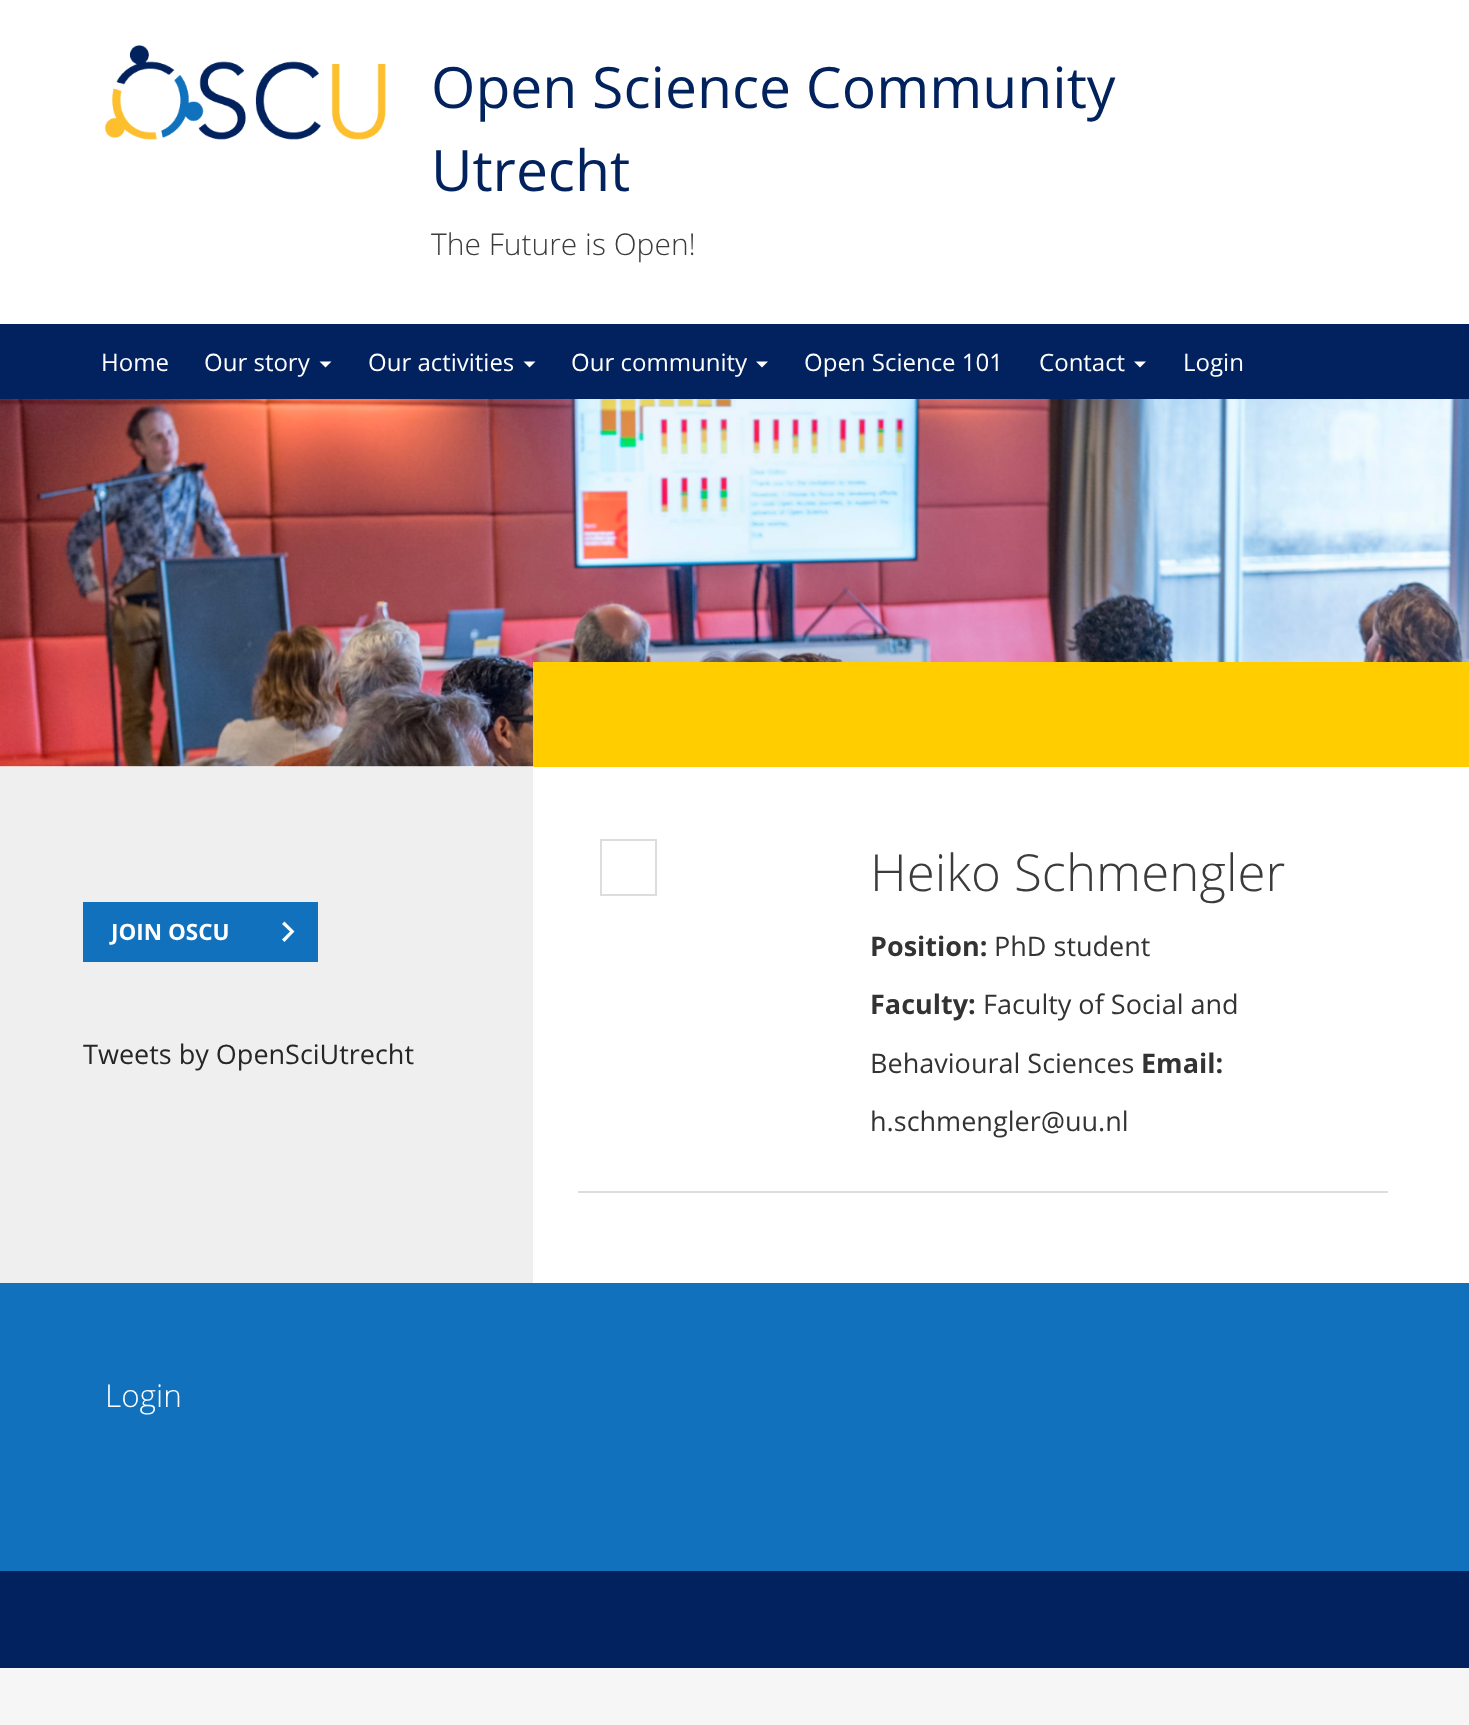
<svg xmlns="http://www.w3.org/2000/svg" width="1469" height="1725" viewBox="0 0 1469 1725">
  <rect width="100%" height="100%" fill="#f6f6f6"/>
  <rect x="0" y="0" width="1469" height="324" fill="#ffffff"/>
  <image x="105" y="45" width="281" height="95" href="img1.png"/>
  <text x="431" y="108" font-family="Open Sans" font-size="57" fill="#02225e">Open Science Community</text>
  <text x="431" y="191" font-family="Open Sans" font-size="57" fill="#02225e">Utrecht</text>
  <text x="431" y="255" font-family="Open Sans" font-size="30" font-weight="300" fill="#3b3b3b">The Future is Open!</text>
  <rect x="0" y="324" width="1469" height="75" fill="#01225e"/>
  <text x="101" y="371" font-family="Open Sans" font-size="24" fill="#ffffff">Home</text>
  <text x="204" y="371" font-family="Open Sans" font-size="24" fill="#ffffff">Our story</text>
  <path d="M319.5 361.5H331.5L325.5 367.5Z" fill="#ffffff"/>
  <text x="368" y="371" font-family="Open Sans" font-size="24" fill="#ffffff">Our activities</text>
  <path d="M523.5 361.5H535.5L529.5 367.5Z" fill="#ffffff"/>
  <text x="571" y="371" font-family="Open Sans" font-size="24" fill="#ffffff">Our community</text>
  <path d="M756 361.5H768L762 367.5Z" fill="#ffffff"/>
  <text x="804" y="371" font-family="Open Sans" font-size="24" fill="#ffffff">Open Science 101</text>
  <text x="1039" y="371" font-family="Open Sans" font-size="24" fill="#ffffff">Contact</text>
  <path d="M1134 361.5H1146L1140 367.5Z" fill="#ffffff"/>
  <text x="1183" y="371" font-family="Open Sans" font-size="24" fill="#ffffff">Login</text>
  <rect x="0" y="767" width="533" height="516" fill="#efefef"/>
  <rect x="533" y="767" width="936" height="516" fill="#ffffff"/>
  <rect x="0" y="766" width="533" height="1" fill="#ffffff"/>
  <image x="0" y="399" width="1469" height="368" href="img2.png"/>
  <rect x="533" y="662" width="936" height="105" fill="#ffcd00"/>
  <rect x="83" y="902" width="235" height="60" fill="#1171bc"/>
  <text x="111" y="940" font-family="Open Sans" font-size="22.5" font-weight="bold" fill="#ffffff">JOIN OSCU</text>
  <path d="M292 934L284.5 942L282 939.5L290 931.5L282 924L284.5 921.5L294.5 931.5Z" fill="#ffffff"/>
  <text x="83" y="1064" font-family="Open Sans" font-size="27" fill="#262626">Tweets by OpenSciUtrecht</text>
  <rect x="578" y="1191" width="810" height="2" fill="#dddddd"/>
  <rect x="601" y="840" width="55" height="55" fill="none" stroke="#dddddd" stroke-width="2"/>
  <text x="870" y="891" font-family="Open Sans" font-size="51" font-weight="300" fill="#3b3b3b">Heiko Schmengler</text>
  <text x="870" y="956" font-family="Open Sans" font-size="27" font-weight="bold" fill="#333333">Position:</text>
  <text x="994" y="956" font-family="Open Sans" font-size="27" fill="#333333">PhD student</text>
  <text x="870" y="1014" font-family="Open Sans" font-size="27" font-weight="bold" fill="#333333">Faculty:</text>
  <text x="983" y="1014" font-family="Open Sans" font-size="27" fill="#333333">Faculty of Social and</text>
  <text x="870" y="1073" font-family="Open Sans" font-size="27" fill="#333333">Behavioural Sciences</text>
  <text x="1141" y="1073" font-family="Open Sans" font-size="27" font-weight="bold" fill="#333333">Email:</text>
  <text x="870" y="1131" font-family="Open Sans" font-size="27" fill="#333333">h.schmengler@uu.nl</text>
  <rect x="0" y="1283" width="1469" height="288" fill="#1171bc"/>
  <text x="105" y="1407" font-family="Open Sans" font-size="31.5" font-weight="300" fill="#ffffff">Login</text>
  <rect x="0" y="1571" width="1469" height="97" fill="#01225e"/>
</svg>
